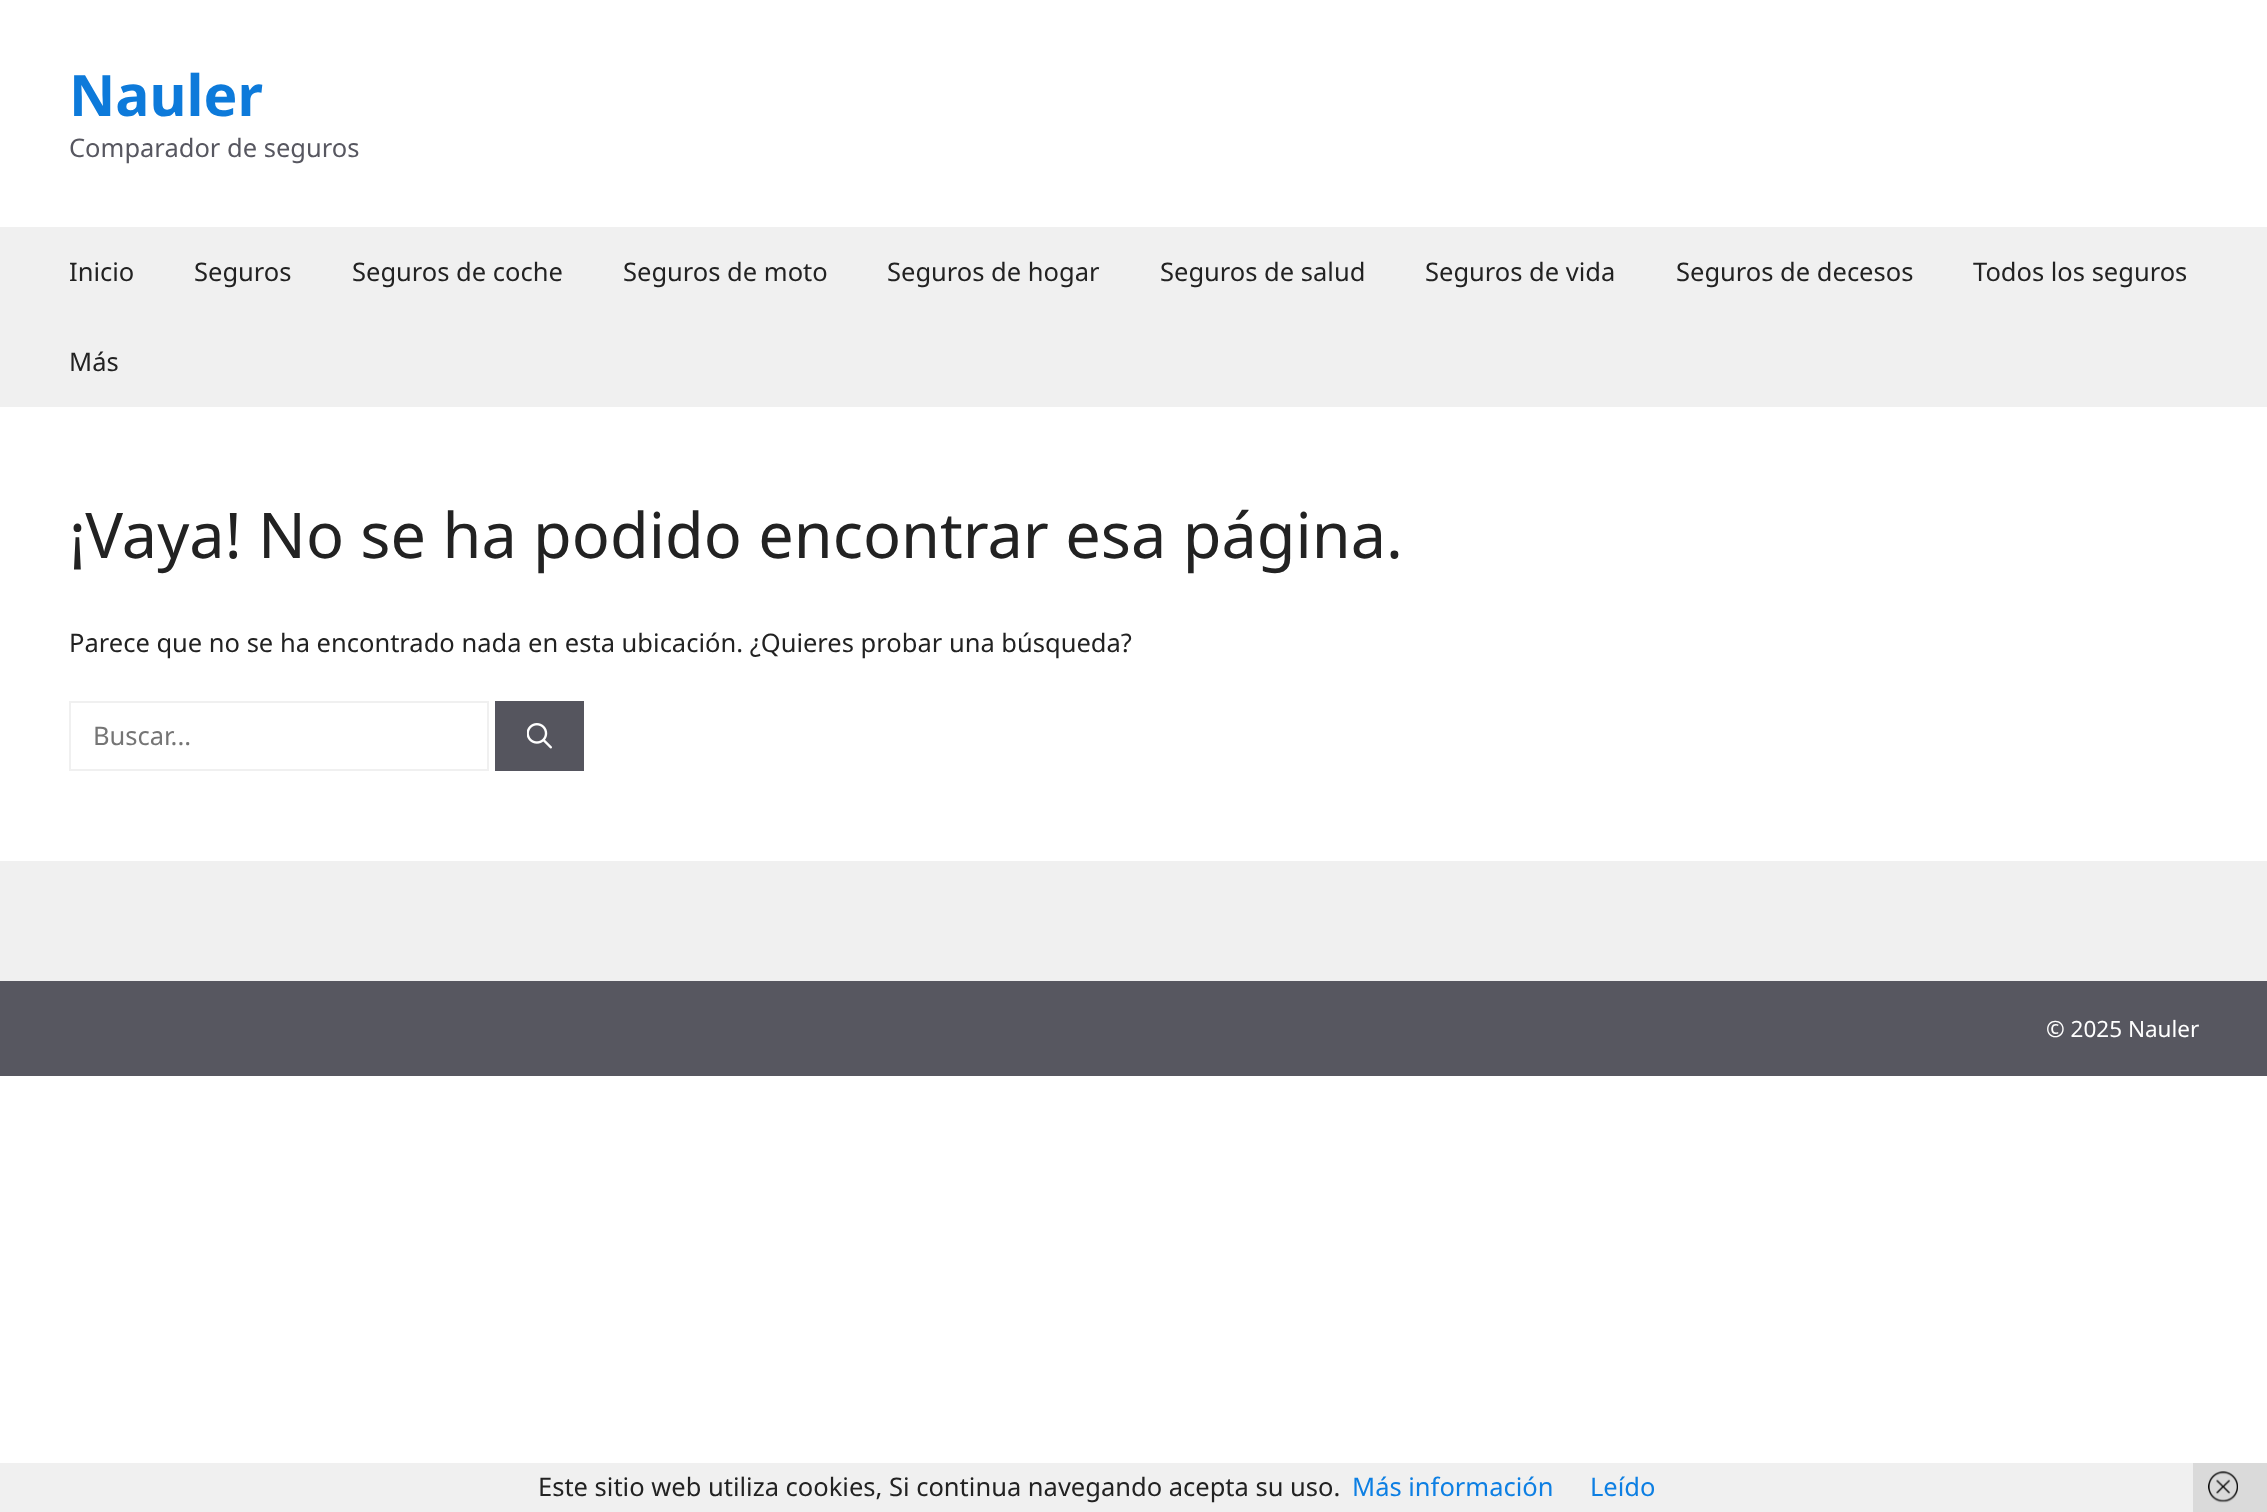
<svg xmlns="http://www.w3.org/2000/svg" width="2267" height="1512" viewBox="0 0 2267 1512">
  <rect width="100%" height="100%" fill="#ffffff"/>
  <text x="69" y="116" font-family="Noto Sans" font-size="57" font-weight="bold" fill="#0d7ada">Nauler</text>
  <text x="69" y="157" font-family="Noto Sans" font-size="25.5" fill="#575760">Comparador de seguros</text>
  <rect x="0" y="227" width="2267" height="180" fill="#f0f0f0"/>
  <text x="69" y="281" font-family="Noto Sans" font-size="25.5" fill="#222222">Inicio</text>
  <text x="194" y="281" font-family="Noto Sans" font-size="25.5" fill="#222222">Seguros</text>
  <text x="352" y="281" font-family="Noto Sans" font-size="25.5" fill="#222222">Seguros de coche</text>
  <text x="623" y="281" font-family="Noto Sans" font-size="25.5" fill="#222222">Seguros de moto</text>
  <text x="887" y="281" font-family="Noto Sans" font-size="25.5" fill="#222222">Seguros de hogar</text>
  <text x="1160" y="281" font-family="Noto Sans" font-size="25.5" fill="#222222">Seguros de salud</text>
  <text x="1425" y="281" font-family="Noto Sans" font-size="25.5" fill="#222222">Seguros de vida</text>
  <text x="1676" y="281" font-family="Noto Sans" font-size="25.5" fill="#222222">Seguros de decesos</text>
  <text x="1973" y="281" font-family="Noto Sans" font-size="25.5" fill="#222222">Todos los seguros</text>
  <text x="69" y="371" font-family="Noto Sans" font-size="25.5" fill="#222222">Más</text>
  <text x="69" y="558" font-family="Noto Sans" font-size="63" fill="#222222">¡Vaya! No se ha podido encontrar esa página.</text>
  <text x="69" y="652" font-family="Noto Sans" font-size="25.5" fill="#222222">Parece que no se ha encontrado nada en esta ubicación. ¿Quieres probar una búsqueda?</text>
  <rect x="70" y="702" width="418" height="68" fill="none" stroke="#f0f0f0" stroke-width="2"/>
  <text x="93" y="745" font-family="Noto Sans" font-size="25.5" fill="#757575">Buscar...</text>
  <rect x="495" y="701" width="89" height="70" fill="#55555e"/>
  <image x="527" y="723" width="25" height="26" href="img1.png"/>
  <rect x="0" y="861" width="2267" height="120" fill="#f0f0f0"/>
  <rect x="0" y="981" width="2267" height="95" fill="#575760"/>
  <text x="2046" y="1037" font-family="Noto Sans" font-size="22.5" fill="#ffffff">© 2025 Nauler</text>
  <rect x="0" y="1463" width="2193" height="49" fill="#f0f0f0"/>
  <text x="538" y="1496" font-family="Noto Sans" font-size="25.5" fill="#222222">Este sitio web utiliza cookies, Si continua navegando acepta su uso.</text>
  <text x="1352" y="1496" font-family="Noto Sans" font-size="25.5" fill="#0d7fe3">Más información</text>
  <text x="1590" y="1496" font-family="Noto Sans" font-size="25.5" fill="#0d7fe3">Leído</text>
  <rect x="2193" y="1463" width="74" height="49" fill="#dadada"/>
  <image x="2208" y="1471" width="30" height="32" href="img2.png"/>
</svg>
